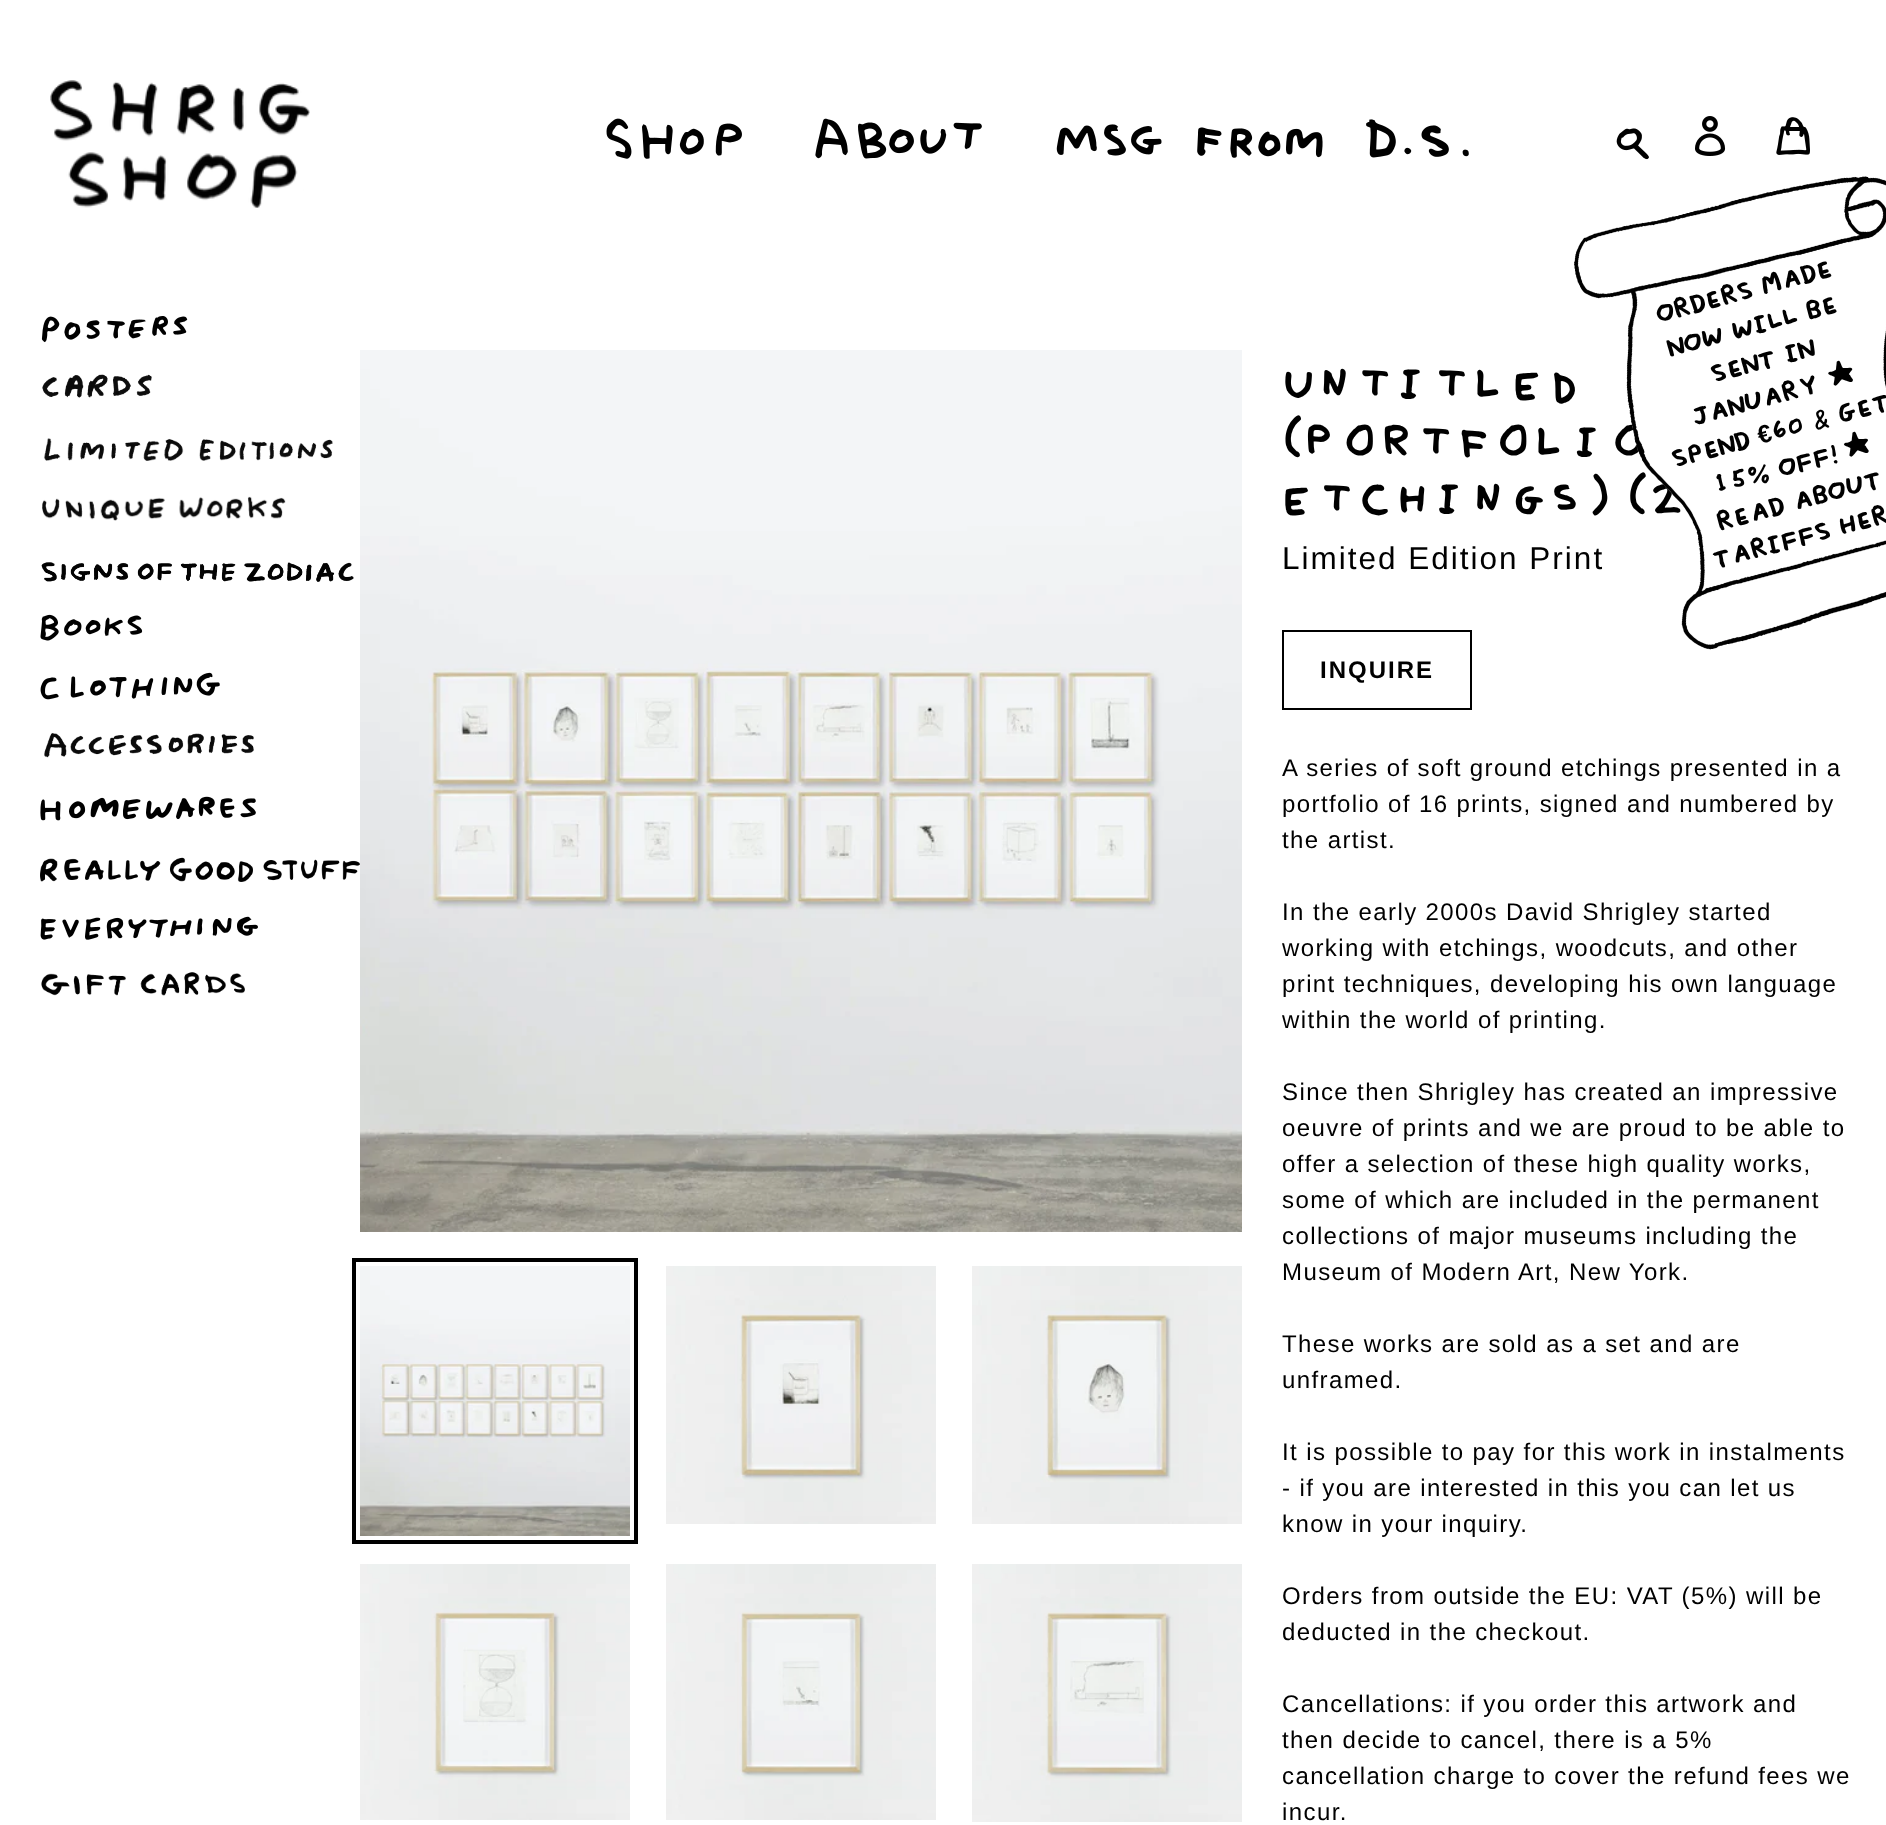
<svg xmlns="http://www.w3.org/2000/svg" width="1886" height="1825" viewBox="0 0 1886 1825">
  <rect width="100%" height="100%" fill="#ffffff"/>
  <image x="41" y="316" width="147" height="27" href="img1.png"/>
  <image x="42" y="374" width="110" height="24" href="img2.png"/>
  <image x="43" y="438" width="290" height="23" href="img3.png"/>
  <image x="42" y="496" width="244" height="25" href="img4.png"/>
  <image x="41" y="562" width="313" height="20" href="img5.png"/>
  <image x="40" y="614" width="103" height="27" href="img6.png"/>
  <image x="40" y="672" width="180" height="28" href="img7.png"/>
  <image x="44" y="733" width="210" height="25" href="img8.png"/>
  <image x="40" y="796" width="216" height="25" href="img9.png"/>
  <image x="40" y="857" width="320" height="25" href="img10.png"/>
  <image x="40" y="916" width="218" height="24" href="img11.png"/>
  <image x="41" y="972" width="204" height="24" href="img12.png"/>
  <image x="50" y="80" width="260" height="128" href="img13.png"/>
  <image x="606" y="118" width="136" height="41" href="img14.png"/>
  <image x="815" y="118" width="167" height="41" href="img15.png"/>
  <image x="1056" y="119" width="413" height="39" href="img16.png"/>
  <image x="1616" y="128" width="33" height="32" href="img17.png"/>
  <image x="1695" y="116" width="31" height="40" href="img18.png"/>
  <image x="1776" y="117" width="34" height="38" href="img19.png"/>
  <text x="1282" y="398" font-family="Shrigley" font-size="64" fill="#000000">untitled</text>
  <text x="1282" y="456" font-family="Shrigley" font-size="64" fill="#000000">(portfolio</text>
  <text x="1282" y="513" font-family="Shrigley" font-size="64" fill="#000000">etchings) (2</text>
  <text x="1282" y="569" font-family="Liberation Sans" font-size="31.5" letter-spacing="2" fill="#000000">Limited Edition Print</text>
  <image x="1574" y="176" width="312" height="474" href="img20.png"/>
  <text x="1658" y="322" transform="rotate(-15 1658 322)" font-family="Shrigley" font-size="36" fill="#000000">ORDERS MADE</text>
  <text x="1670" y="356" transform="rotate(-15 1670 356)" font-family="Shrigley" font-size="36" fill="#000000">NOW WILL BE</text>
  <text x="1713" y="382" transform="rotate(-15 1713 382)" font-family="Shrigley" font-size="36" fill="#000000">SENT IN</text>
  <text x="1833" y="387" transform="rotate(-15 1833 387)" font-family="Shrigley" font-size="36" fill="#000000">€</text>
  <text x="1694" y="425" transform="rotate(-15 1694 425)" font-family="Shrigley" font-size="36" fill="#000000">JANUARY</text>
  <text x="1774" y="440" transform="rotate(-15 1774 440)" font-family="Shrigley" font-size="36" fill="#000000">60 &amp; GET</text>
  <text x="1760" y="444" transform="rotate(-15 1760 444)" font-family="Liberation Sans" font-size="25" font-weight="bold" fill="#000000">€</text>
  <text x="1674" y="467" transform="rotate(-15 1674 467)" font-family="Shrigley" font-size="36" fill="#000000">SPEND</text>
  <text x="1714" y="494" transform="rotate(-15 1714 494)" font-family="Shrigley" font-size="36" fill="#000000">15% OFF! €</text>
  <text x="1719" y="530" transform="rotate(-15 1719 530)" font-family="Shrigley" font-size="36" fill="#000000">READ ABOUT</text>
  <text x="1715" y="568" transform="rotate(-15 1715 568)" font-family="Shrigley" font-size="36" fill="#000000">TARIFFS HERE</text>
  <image x="360" y="350" width="882" height="882" href="img21.png"/>
  <rect x="354" y="1260" width="282" height="282" fill="none" stroke="#000000" stroke-width="4"/>
  <image x="360" y="1266" width="270" height="270" href="img22.png"/>
  <image x="666" y="1266" width="270" height="258" href="img23.png"/>
  <image x="972" y="1266" width="270" height="258" href="img24.png"/>
  <image x="360" y="1564" width="270" height="256" href="img25.png"/>
  <image x="666" y="1564" width="270" height="256" href="img26.png"/>
  <image x="972" y="1564" width="270" height="258" href="img27.png"/>
  <rect x="1283" y="631" width="188" height="78" fill="none" stroke="#000000" stroke-width="2"/>
  <text x="1320" y="678" font-family="Liberation Sans" font-size="24" font-weight="bold" letter-spacing="2" fill="#000000">INQUIRE</text>
  <text x="1282" y="776" font-family="Liberation Sans" font-size="24" letter-spacing="1.4" fill="#000000">A series of soft ground etchings presented in a</text>
  <text x="1282" y="812" font-family="Liberation Sans" font-size="24" letter-spacing="1.4" fill="#000000">portfolio of 16 prints, signed and numbered by</text>
  <text x="1282" y="848" font-family="Liberation Sans" font-size="24" letter-spacing="1.4" fill="#000000">the artist.</text>
  <text x="1282" y="920" font-family="Liberation Sans" font-size="24" letter-spacing="1.4" fill="#000000">In the early 2000s David Shrigley started</text>
  <text x="1282" y="956" font-family="Liberation Sans" font-size="24" letter-spacing="1.4" fill="#000000">working with etchings, woodcuts, and other</text>
  <text x="1282" y="992" font-family="Liberation Sans" font-size="24" letter-spacing="1.4" fill="#000000">print techniques, developing his own language</text>
  <text x="1282" y="1028" font-family="Liberation Sans" font-size="24" letter-spacing="1.4" fill="#000000">within the world of printing.</text>
  <text x="1282" y="1100" font-family="Liberation Sans" font-size="24" letter-spacing="1.4" fill="#000000">Since then Shrigley has created an impressive</text>
  <text x="1282" y="1136" font-family="Liberation Sans" font-size="24" letter-spacing="1.4" fill="#000000">oeuvre of prints and we are proud to be able to</text>
  <text x="1282" y="1172" font-family="Liberation Sans" font-size="24" letter-spacing="1.4" fill="#000000">offer a selection of these high quality works,</text>
  <text x="1282" y="1208" font-family="Liberation Sans" font-size="24" letter-spacing="1.4" fill="#000000">some of which are included in the permanent</text>
  <text x="1282" y="1244" font-family="Liberation Sans" font-size="24" letter-spacing="1.4" fill="#000000">collections of major museums including the</text>
  <text x="1282" y="1280" font-family="Liberation Sans" font-size="24" letter-spacing="1.4" fill="#000000">Museum of Modern Art, New York.</text>
  <text x="1282" y="1352" font-family="Liberation Sans" font-size="24" letter-spacing="1.4" fill="#000000">These works are sold as a set and are</text>
  <text x="1282" y="1388" font-family="Liberation Sans" font-size="24" letter-spacing="1.4" fill="#000000">unframed.</text>
  <text x="1282" y="1460" font-family="Liberation Sans" font-size="24" letter-spacing="1.4" fill="#000000">It is possible to pay for this work in instalments</text>
  <text x="1282" y="1496" font-family="Liberation Sans" font-size="24" letter-spacing="1.4" fill="#000000">- if you are interested in this you can let us</text>
  <text x="1282" y="1532" font-family="Liberation Sans" font-size="24" letter-spacing="1.4" fill="#000000">know in your inquiry.</text>
  <text x="1282" y="1604" font-family="Liberation Sans" font-size="24" letter-spacing="1.4" fill="#000000">Orders from outside the EU: VAT (5%) will be</text>
  <text x="1282" y="1640" font-family="Liberation Sans" font-size="24" letter-spacing="1.4" fill="#000000">deducted in the checkout.</text>
  <text x="1282" y="1712" font-family="Liberation Sans" font-size="24" letter-spacing="1.4" fill="#000000">Cancellations: if you order this artwork and</text>
  <text x="1282" y="1748" font-family="Liberation Sans" font-size="24" letter-spacing="1.4" fill="#000000">then decide to cancel, there is a 5%</text>
  <text x="1282" y="1784" font-family="Liberation Sans" font-size="24" letter-spacing="1.4" fill="#000000">cancellation charge to cover the refund fees we</text>
  <text x="1282" y="1820" font-family="Liberation Sans" font-size="24" letter-spacing="1.4" fill="#000000">incur.</text>
</svg>
